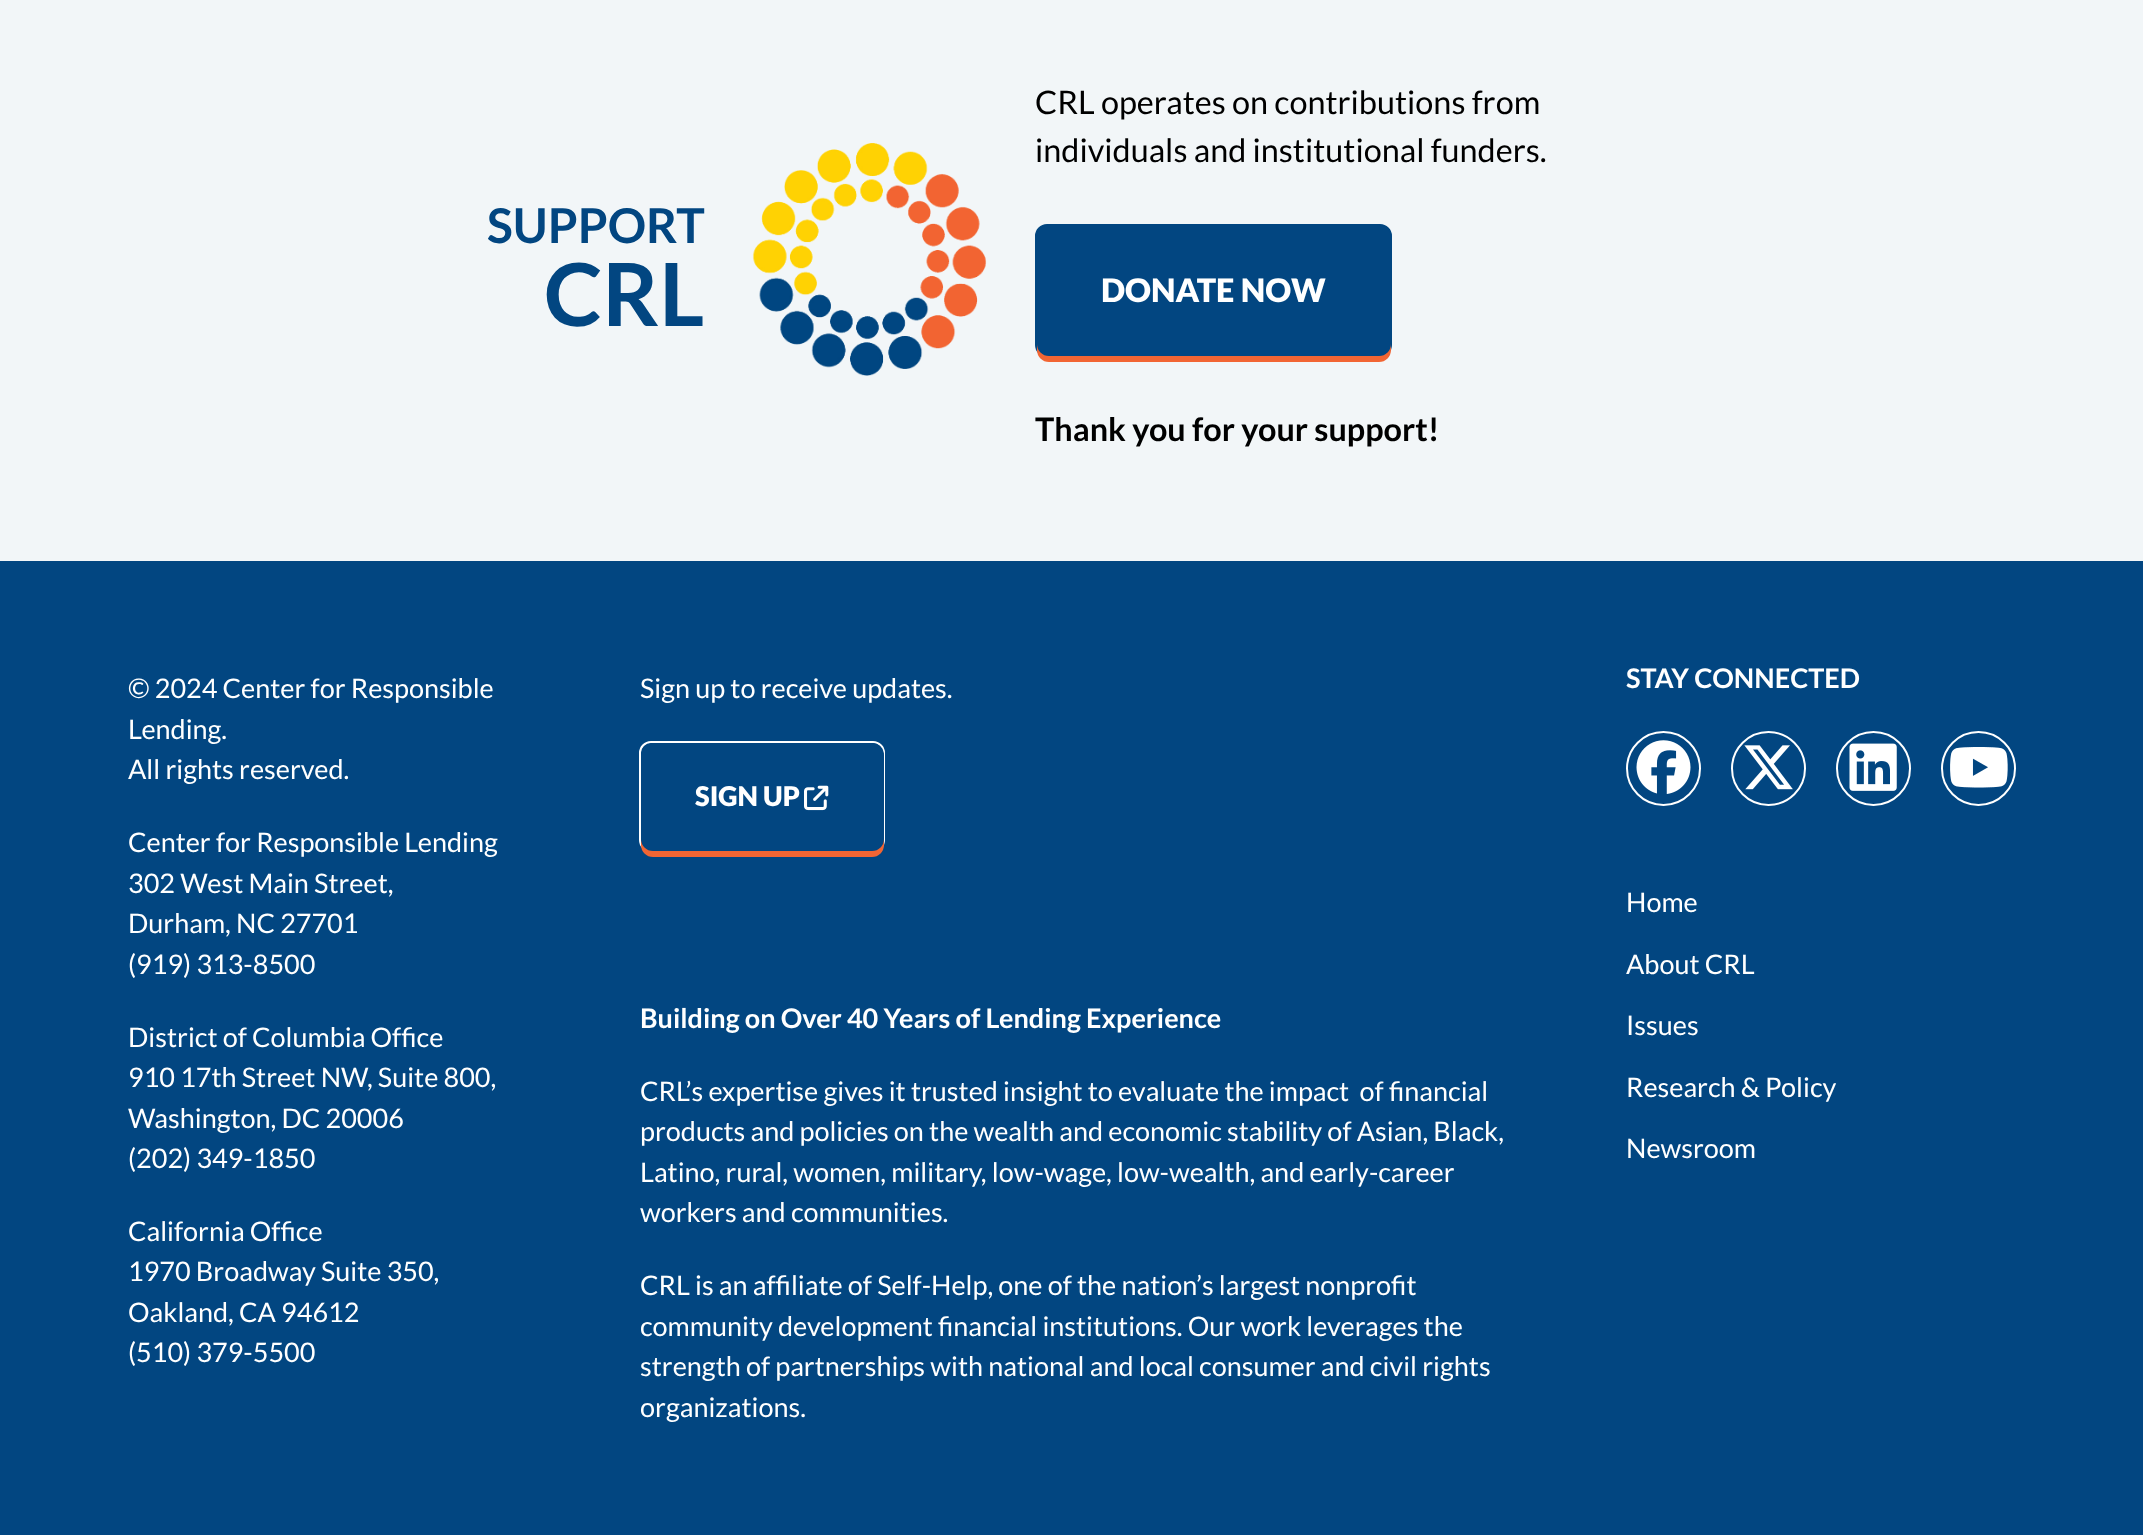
<svg xmlns="http://www.w3.org/2000/svg" width="2143" height="1536" viewBox="0 0 2143 1536">
  <rect width="100%" height="100%" fill="#ffffff"/>
  <rect x="0" y="561" width="2143" height="974" fill="#024681"/>
  <rect x="0" y="0" width="2143" height="561" fill="#f2f6f8"/>
  <text x="487" y="243" font-family="Lato" font-size="48" font-weight="bold" fill="#024681">SUPPORT</text>
  <text x="544" y="326" font-family="Lato" font-size="87" font-weight="bold" fill="#024681">CRL</text>
  <image x="752" y="143" width="235" height="233" href="img1.png"/>
  <text x="1035" y="114" font-family="Lato" font-size="32.4" fill="#000000">CRL operates on contributions from</text>
  <text x="1035" y="162" font-family="Lato" font-size="32.4" fill="#000000">individuals and institutional funders.</text>
  <rect x="1036" y="225" width="355" height="131" rx="11" fill="#024681" stroke="#014681" stroke-width="2"/>
  <rect x="1037" y="231" width="354" height="131" rx="12" fill="#f26533"/>
  <rect x="1037" y="225" width="354" height="131" rx="12" fill="#024681"/>
  <text x="1101" y="302" font-family="Lato" font-size="32.4" font-weight="900" fill="#ffffff">DONATE NOW</text>
  <text x="1035" y="441" font-family="Lato" font-size="32.4" font-weight="bold" fill="#000000">Thank you for your support!</text>
  <text x="128" y="698" font-family="Lato" font-size="27" fill="#ffffff">© 2024 Center for Responsible</text>
  <text x="128" y="739" font-family="Lato" font-size="27" fill="#ffffff">Lending.</text>
  <text x="128" y="779" font-family="Lato" font-size="27" fill="#ffffff">All rights reserved.</text>
  <text x="128" y="852" font-family="Lato" font-size="27" fill="#ffffff">Center for Responsible Lending</text>
  <text x="128" y="893" font-family="Lato" font-size="27" fill="#ffffff">302 West Main Street,</text>
  <text x="128" y="933" font-family="Lato" font-size="27" fill="#ffffff">Durham, NC 27701</text>
  <text x="128" y="974" font-family="Lato" font-size="27" fill="#ffffff">(919) 313-8500</text>
  <text x="128" y="1047" font-family="Lato" font-size="27" fill="#ffffff">District of Columbia Office</text>
  <text x="128" y="1087" font-family="Lato" font-size="27" fill="#ffffff">910 17th Street NW, Suite 800,</text>
  <text x="128" y="1128" font-family="Lato" font-size="27" fill="#ffffff">Washington, DC 20006</text>
  <text x="128" y="1168" font-family="Lato" font-size="27" fill="#ffffff">(202) 349-1850</text>
  <text x="128" y="1241" font-family="Lato" font-size="27" fill="#ffffff">California Office</text>
  <text x="128" y="1281" font-family="Lato" font-size="27" fill="#ffffff">1970 Broadway Suite 350,</text>
  <text x="128" y="1322" font-family="Lato" font-size="27" fill="#ffffff">Oakland, CA 94612</text>
  <text x="128" y="1362" font-family="Lato" font-size="27" fill="#ffffff">(510) 379-5500</text>
  <text x="640" y="698" font-family="Lato" font-size="27" fill="#ffffff">Sign up to receive updates.</text>
  <rect x="640" y="742" width="244" height="109" rx="11" fill="none" stroke="#ffffff" stroke-width="2"/>
  <rect x="641" y="749" width="243" height="108" rx="12" fill="#f26533"/>
  <rect x="641" y="743" width="243" height="108" rx="12" fill="#024681"/>
  <text x="695" y="806" font-family="Lato" font-size="27" font-weight="900" fill="#ffffff">SIGN UP</text>
  <image x="804" y="785" width="25" height="26" href="img2.png"/>
  <text x="640" y="1028" font-family="Lato" font-size="27" font-weight="bold" fill="#ffffff">Building on Over 40 Years of Lending Experience</text>
  <text x="640" y="1101" font-family="Lato" font-size="27" fill="#ffffff" xml:space="preserve">CRL’s expertise gives it trusted insight to evaluate the impact  of financial</text>
  <text x="640" y="1141" font-family="Lato" font-size="27" fill="#ffffff">products and policies on the wealth and economic stability of Asian, Black,</text>
  <text x="640" y="1182" font-family="Lato" font-size="27" fill="#ffffff">Latino, rural, women, military, low-wage, low-wealth, and early-career</text>
  <text x="640" y="1222" font-family="Lato" font-size="27" fill="#ffffff">workers and communities.</text>
  <text x="640" y="1295" font-family="Lato" font-size="27" fill="#ffffff">CRL is an affiliate of Self-Help, one of the nation’s largest nonprofit</text>
  <text x="640" y="1336" font-family="Lato" font-size="27" fill="#ffffff">community development financial institutions. Our work leverages the</text>
  <text x="640" y="1376" font-family="Lato" font-size="27" fill="#ffffff">strength of partnerships with national and local consumer and civil rights</text>
  <text x="640" y="1417" font-family="Lato" font-size="27" fill="#ffffff">organizations.</text>
  <text x="1626" y="688" font-family="Lato" font-size="27" font-weight="bold" fill="#ffffff">STAY CONNECTED</text>
  <circle cx="1663.5" cy="768.5" r="36.5" fill="none" stroke="#ffffff" stroke-width="2"/>
  <image x="1636" y="740" width="55" height="54" href="img3.png"/>
  <circle cx="1768.5" cy="768.5" r="36.5" fill="none" stroke="#ffffff" stroke-width="2"/>
  <image x="1744" y="745" width="49" height="45" href="img4.png"/>
  <circle cx="1873.5" cy="768.5" r="36.5" fill="none" stroke="#ffffff" stroke-width="2"/>
  <image x="1849" y="743" width="48" height="48" href="img5.png"/>
  <circle cx="1978.5" cy="768.5" r="36.5" fill="none" stroke="#ffffff" stroke-width="2"/>
  <image x="1950" y="747" width="58" height="41" href="img6.png"/>
  <text x="1626" y="912" font-family="Lato" font-size="27" fill="#ffffff">Home</text>
  <text x="1626" y="974" font-family="Lato" font-size="27" fill="#ffffff">About CRL</text>
  <text x="1626" y="1035" font-family="Lato" font-size="27" fill="#ffffff">Issues</text>
  <text x="1626" y="1097" font-family="Lato" font-size="27" fill="#ffffff">Research &amp; Policy</text>
  <text x="1626" y="1158" font-family="Lato" font-size="27" fill="#ffffff">Newsroom</text>
</svg>
